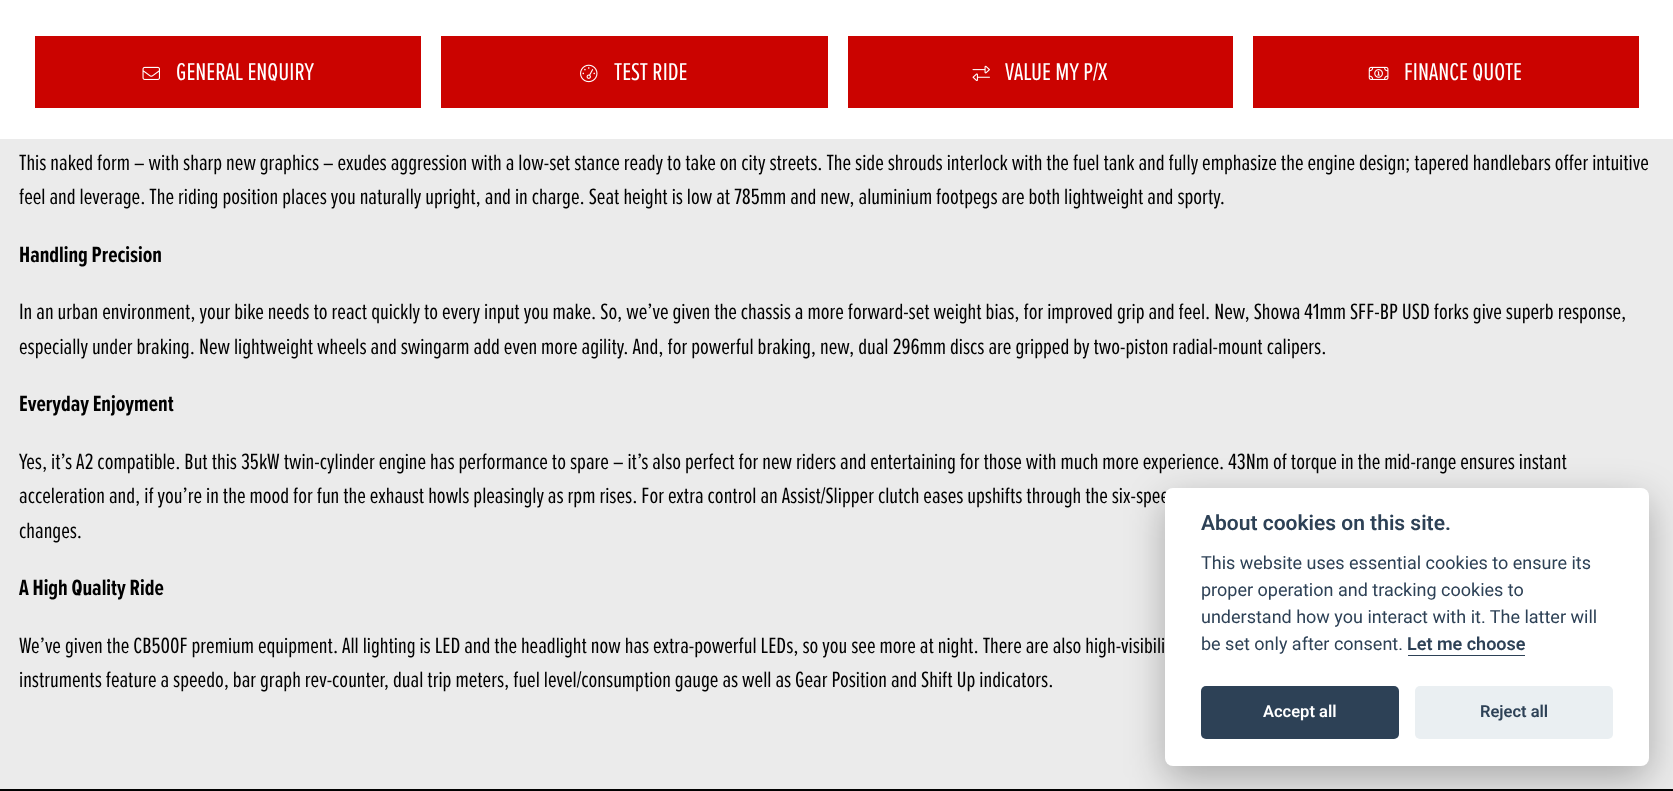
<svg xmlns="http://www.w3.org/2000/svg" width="1673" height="791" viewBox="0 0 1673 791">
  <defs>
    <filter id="blur1" x="-50%" y="-200%" width="200%" height="500%"><feGaussianBlur stdDeviation="19"/></filter>
  </defs>
  <rect width="100%" height="100%" fill="#ebebeb"/>
  <rect x="0" y="0" width="1673" height="139" fill="#ffffff"/>
  <rect x="35" y="36" width="386" height="72" fill="#cb0300"/>
  <image x="142" y="66" width="18" height="14" href="img1.png"/>
  <text x="176" y="80" font-family="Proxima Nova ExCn" font-size="25.25" fill="#ffffff">GENERAL ENQUIRY</text>
  <rect x="441" y="36" width="387" height="72" fill="#cb0300"/>
  <image x="580" y="64" width="18" height="19" href="img2.png"/>
  <text x="614" y="80" font-family="Proxima Nova ExCn" font-size="25.25" fill="#ffffff">TEST RIDE</text>
  <rect x="848" y="36" width="385" height="72" fill="#cb0300"/>
  <image x="972" y="65" width="18" height="17" href="img3.png"/>
  <text x="1005" y="80" font-family="Proxima Nova ExCn" font-size="25.25" fill="#ffffff">VALUE MY P/X</text>
  <rect x="1253" y="36" width="386" height="72" fill="#cb0300"/>
  <image x="1368" y="66" width="21" height="14" href="img4.png"/>
  <text x="1404" y="80" font-family="Proxima Nova ExCn" font-size="25.25" fill="#ffffff">FINANCE QUOTE</text>
  <text x="19" y="170" font-family="Proxima Nova ExCn" font-size="23" fill="#010101">This naked form – with sharp new graphics – exudes aggression with a low-set stance ready to take on city streets. The side shrouds interlock with the fuel tank and fully emphasize the engine design; tapered handlebars offer intuitive</text>
  <text x="19" y="204" font-family="Proxima Nova ExCn" font-size="23" fill="#010101">feel and leverage. The riding position places you naturally upright, and in charge. Seat height is low at 785mm and new, aluminium footpegs are both lightweight and sporty.</text>
  <text x="19" y="262" font-family="Proxima Nova ExCn" font-size="23" font-weight="bold" fill="#010101">Handling Precision</text>
  <text x="19" y="319" font-family="Proxima Nova ExCn" font-size="23" fill="#010101">In an urban environment, your bike needs to react quickly to every input you make. So, we’ve given the chassis a more forward-set weight bias, for improved grip and feel. New, Showa 41mm SFF-BP USD forks give superb response,</text>
  <text x="19" y="354" font-family="Proxima Nova ExCn" font-size="23" fill="#010101">especially under braking. New lightweight wheels and swingarm add even more agility. And, for powerful braking, new, dual 296mm discs are gripped by two-piston radial-mount calipers.</text>
  <text x="19" y="411" font-family="Proxima Nova ExCn" font-size="23" font-weight="bold" fill="#010101">Everyday Enjoyment</text>
  <text x="19" y="469" font-family="Proxima Nova ExCn" font-size="23" fill="#010101">Yes, it’s A2 compatible. But this 35kW twin-cylinder engine has performance to spare – it’s also perfect for new riders and entertaining for those with much more experience. 43Nm of torque in the mid-range ensures instant</text>
  <text x="19" y="503" font-family="Proxima Nova ExCn" font-size="23" fill="#010101">acceleration and, if you’re in the mood for fun the exhaust howls pleasingly as rpm rises. For extra control an Assist/Slipper clutch eases upshifts through the six-spee</text>
  <text x="19" y="538" font-family="Proxima Nova ExCn" font-size="23" fill="#010101">changes.</text>
  <text x="19" y="595" font-family="Proxima Nova ExCn" font-size="23" font-weight="bold" fill="#010101">A High Quality Ride</text>
  <text x="19" y="653" font-family="Proxima Nova ExCn" font-size="23" fill="#010101">We’ve given the CB500F premium equipment. All lighting is LED and the headlight now has extra-powerful LEDs, so you see more at night. There are also high-visibili</text>
  <text x="19" y="687" font-family="Proxima Nova ExCn" font-size="23" fill="#010101">instruments feature a speedo, bar graph rev-counter, dual trip meters, fuel level/consumption gauge as well as Gear Position and Shift Up indicators.</text>
  <rect x="0" y="789" width="1673" height="2" fill="#000000"/>
  <rect x="1165" y="500" width="484" height="279" rx="8" fill="#020203" fill-opacity="0.28" filter="url(#blur1)"/>
  <rect x="1165" y="488" width="484" height="278" rx="8" fill="#ffffff"/>
  <text x="1201" y="530" font-family="Roboto" font-size="21" font-weight="600" fill="#2d4156">About cookies on this site.</text>
  <text x="1201" y="569" font-family="Roboto" font-size="18" fill="#2d4156">This website uses essential cookies to ensure its</text>
  <text x="1201" y="596" font-family="Roboto" font-size="18" fill="#2d4156">proper operation and tracking cookies to</text>
  <text x="1201" y="623" font-family="Roboto" font-size="18" fill="#2d4156">understand how you interact with it. The latter will</text>
  <text x="1201" y="650" font-family="Roboto" font-size="18" fill="#2d4156">be set only after consent.</text>
  <text x="1407" y="650" font-family="Roboto" font-size="18" font-weight="600" fill="#2d4156">Let me choose</text>
  <rect x="1408" y="655" width="117" height="1" fill="#2d4156"/>
  <rect x="1201" y="686" width="198" height="53" rx="5" fill="#2d4156"/>
  <text x="1263" y="717" font-family="Roboto" font-size="16.5" font-weight="600" fill="#ffffff">Accept all</text>
  <rect x="1415" y="686" width="198" height="53" rx="5" fill="#eaeff2"/>
  <text x="1480" y="717" font-family="Roboto" font-size="16.5" font-weight="600" fill="#2d4156">Reject all</text>
</svg>
